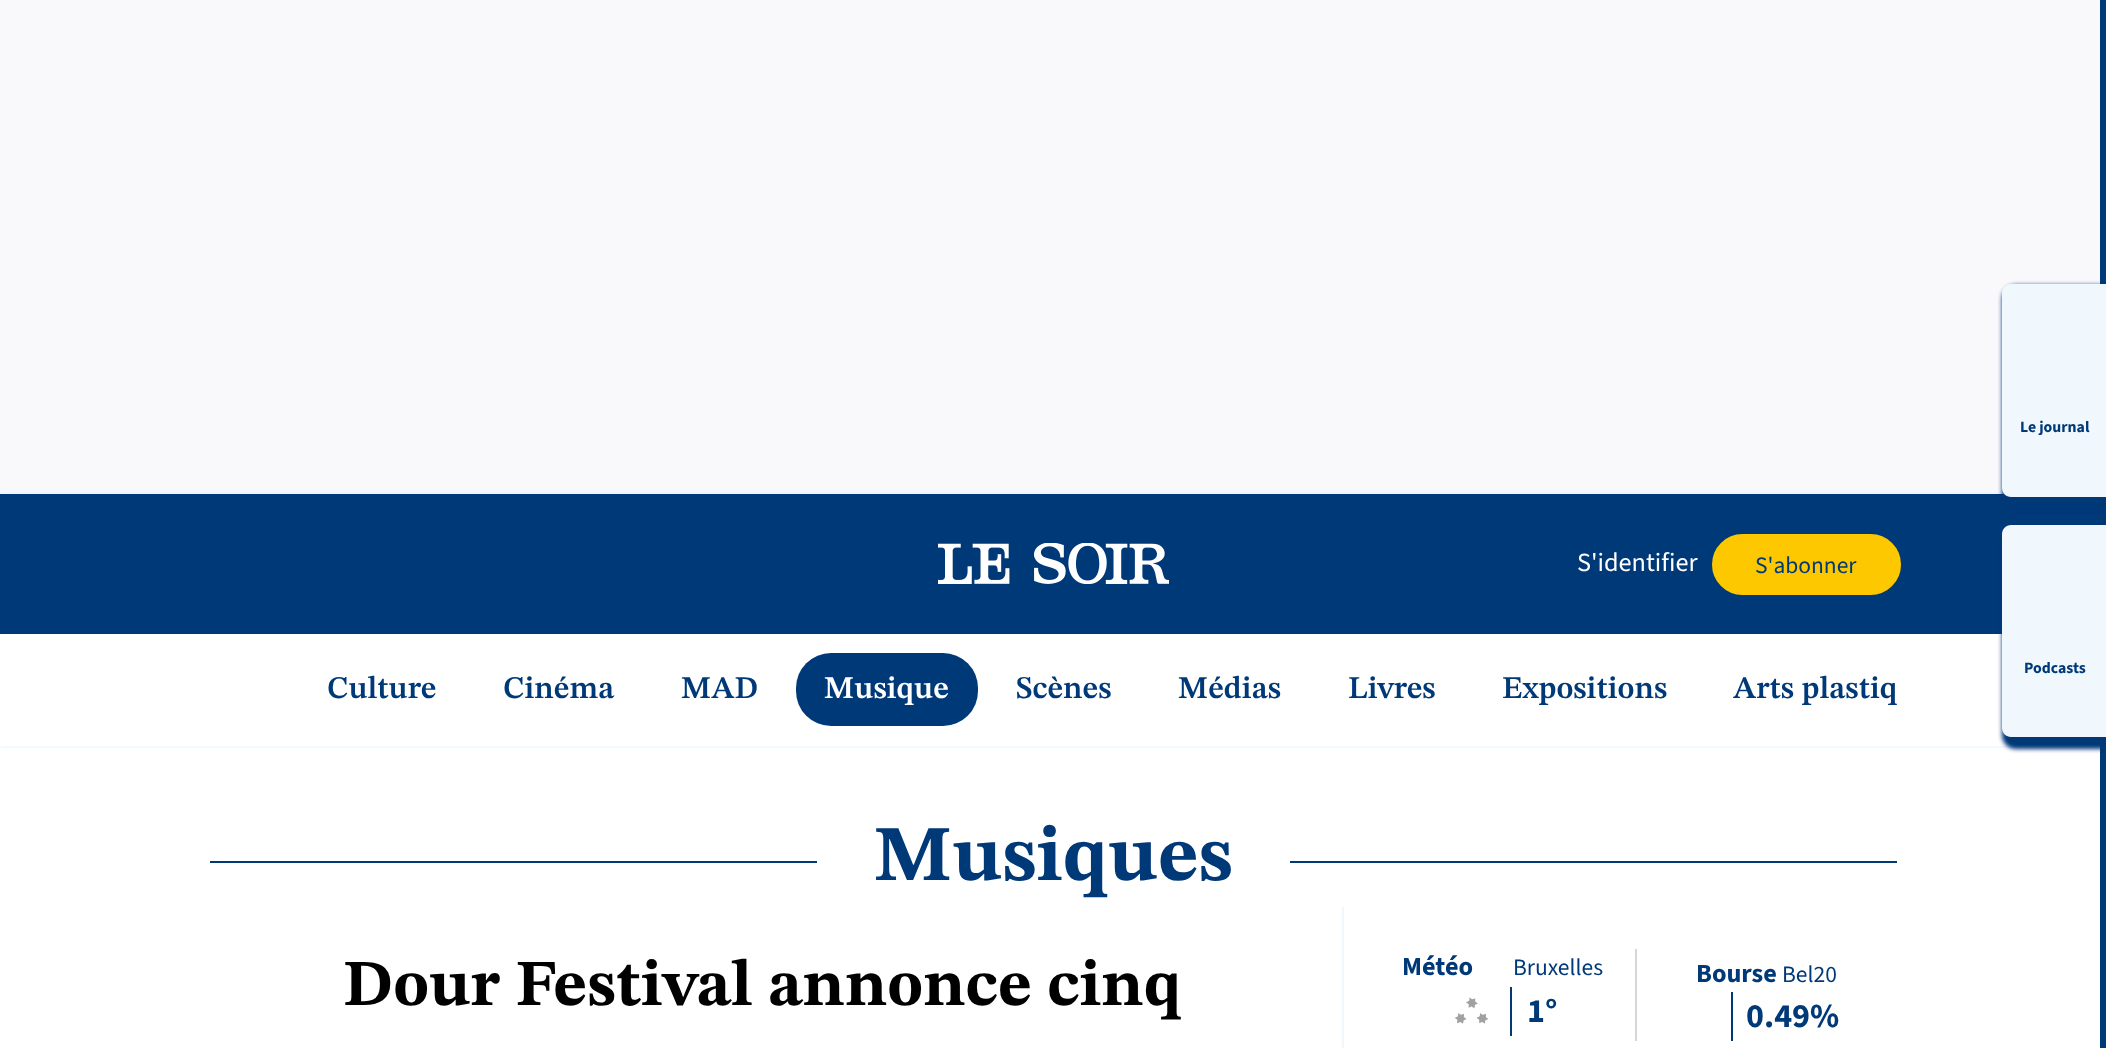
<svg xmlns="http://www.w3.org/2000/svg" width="2106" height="1048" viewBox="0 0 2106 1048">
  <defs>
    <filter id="blur1" x="-50%" y="-200%" width="200%" height="500%"><feGaussianBlur stdDeviation="2"/></filter>
  </defs>
  <rect width="100%" height="100%" fill="#ffffff"/>
  <rect x="0" y="0" width="2100" height="494" fill="#f9f9fc"/>
  <rect x="0" y="494" width="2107" height="252" fill="#ddeefd" filter="url(#blur1)"/>
  <rect x="0" y="494" width="2100" height="140" fill="#003978"/>
  <rect x="0" y="634" width="2100" height="112" fill="#ffffff"/>
  <image x="938" y="543" width="231" height="41" href="img1.png"/>
  <text x="1577" y="571" font-family="'Source Sans 3'" font-size="26.25" fill="#ffffff">S'identifier</text>
  <rect x="1713" y="535" width="187" height="59" rx="29.5" fill="#fdc800" stroke="#fdc800" stroke-width="2"/>
  <text x="1755" y="573" font-family="'Source Sans 3'" font-size="23.5" fill="#003978">S'abonner</text>
  <rect x="2100" y="0" width="6" height="1048" fill="#003978"/>
  <rect x="2002" y="285" width="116" height="224" rx="14" fill="#003978" filter="url(#blur1)"/>
  <path d="M2011 284H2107V497H2011C2006 497 2002 493 2002 488V293C2002 288 2006 284 2011 284Z" fill="#f0f7fd"/>
  <text x="2020" y="432" font-family="'Source Sans 3'" font-size="15.75" font-weight="bold" fill="#003978">Le journal</text>
  <rect x="2002" y="527" width="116" height="222" rx="14" fill="#003978" filter="url(#blur1)"/>
  <path d="M2011 525H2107V737H2011C2006 737 2002 733 2002 728V534C2002 529 2006 525 2011 525Z" fill="#f0f7fd"/>
  <text x="2024" y="673" font-family="'Source Sans 3'" font-size="15.75" font-weight="bold" fill="#003978">Podcasts</text>
  <text x="327" y="698" font-family="STIX Two Text" font-size="31.5" font-weight="600" fill="#003978">Culture</text>
  <text x="503" y="698" font-family="STIX Two Text" font-size="31.5" font-weight="600" fill="#003978">Cinéma</text>
  <text x="681" y="698" font-family="STIX Two Text" font-size="31.5" font-weight="600" fill="#003978">MAD</text>
  <rect x="796" y="653" width="182" height="73" rx="35" fill="#003978"/>
  <text x="824" y="698" font-family="STIX Two Text" font-size="31.5" font-weight="600" fill="#ffffff">Musique</text>
  <text x="1016" y="698" font-family="STIX Two Text" font-size="31.5" font-weight="600" fill="#003978">Scènes</text>
  <text x="1178" y="698" font-family="STIX Two Text" font-size="31.5" font-weight="600" fill="#003978">Médias</text>
  <text x="1348" y="698" font-family="STIX Two Text" font-size="31.5" font-weight="600" fill="#003978">Livres</text>
  <text x="1502" y="698" font-family="STIX Two Text" font-size="31.5" font-weight="600" fill="#003978">Expositions</text>
  <text x="1733" y="698" font-family="STIX Two Text" font-size="31.5" font-weight="600" fill="#003978">Arts plastiq</text>
  <rect x="1342" y="907" width="2" height="141" fill="#f0f7fd"/>
  <rect x="210" y="861" width="607" height="2" fill="#003978"/>
  <text x="874" y="880" font-family="STIX Two Text" font-size="78.75" font-weight="bold" fill="#003978">Musiques</text>
  <rect x="1290" y="861" width="607" height="2" fill="#003978"/>
  <text x="343" y="1005" font-family="STIX Two Text" font-size="65.6" font-weight="bold" fill="#000000">Dour Festival annonce cinq</text>
  <text x="1402" y="975" font-family="'Source Sans 3'" font-size="26.25" font-weight="bold" fill="#003978">Météo</text>
  <text x="1513" y="975" font-family="'Source Sans 3'" font-size="23.5" fill="#003978">Bruxelles</text>
  <image x="1455" y="997" width="33" height="27" href="img2.png"/>
  <text x="1527" y="1022" font-family="'Source Sans 3'" font-size="34" font-weight="bold" fill="#003978">1°</text>
  <rect x="1510" y="987" width="2" height="49" fill="#003978"/>
  <rect x="1635" y="949" width="2" height="92" fill="#d6d6d6"/>
  <text x="1696" y="982" font-family="'Source Sans 3'" font-size="26.25" font-weight="bold" fill="#003978">Bourse</text>
  <text x="1782" y="982" font-family="'Source Sans 3'" font-size="23.5" fill="#003978">Bel20</text>
  <text x="1746" y="1027" font-family="'Source Sans 3'" font-size="34" font-weight="bold" fill="#003978">0.49%</text>
  <rect x="1731" y="992" width="2" height="49" fill="#003978"/>
</svg>
